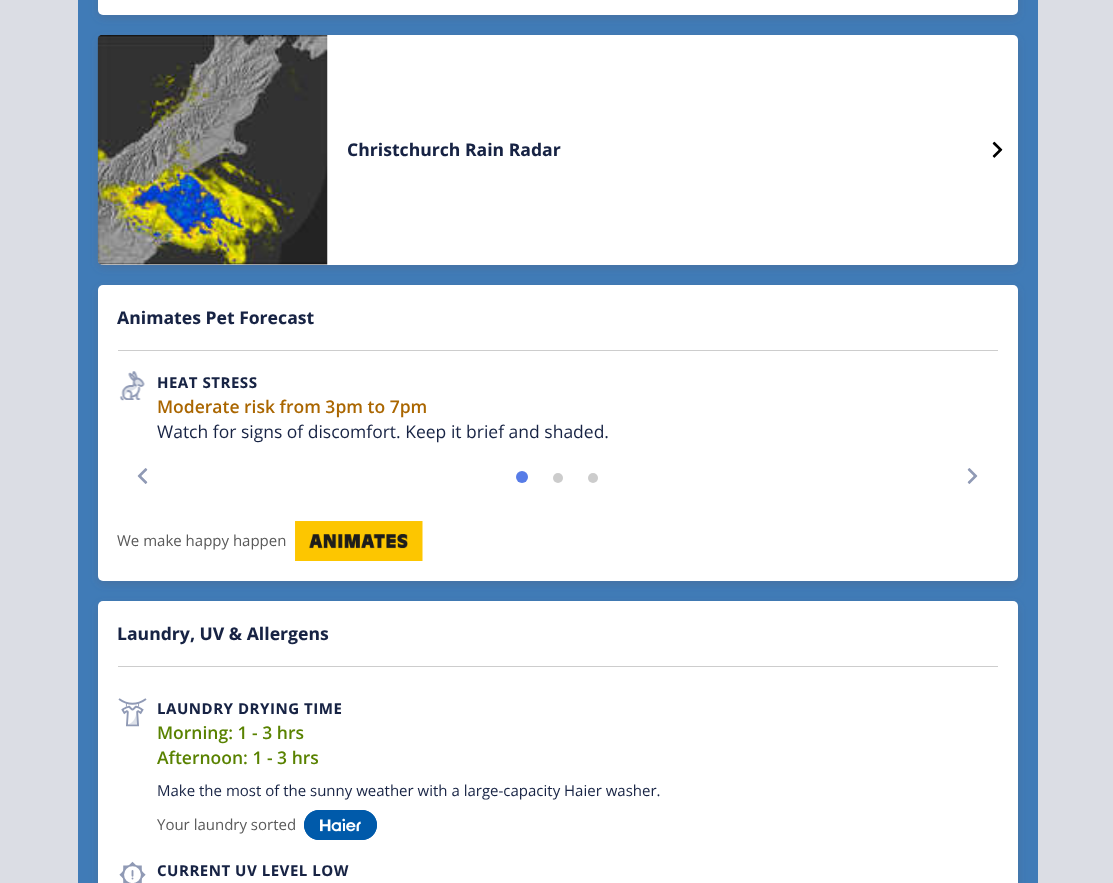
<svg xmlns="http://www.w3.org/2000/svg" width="1113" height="883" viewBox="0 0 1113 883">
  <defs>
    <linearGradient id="g1" gradientUnits="userSpaceOnUse" x1="557" y1="-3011" x2="558" y2="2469"><stop offset="0.05" stop-color="#1d4b87"/><stop offset="0.05" stop-color="#1d4c88"/><stop offset="0.06" stop-color="#1f4e8a"/><stop offset="0.07" stop-color="#20518d"/><stop offset="0.07" stop-color="#235492"/><stop offset="0.08" stop-color="#265996"/><stop offset="0.08" stop-color="#295e9c"/><stop offset="0.09" stop-color="#2d63a1"/><stop offset="0.1" stop-color="#3168a6"/><stop offset="0.1" stop-color="#346daa"/><stop offset="0.11" stop-color="#3871af"/><stop offset="0.12" stop-color="#3b75b2"/><stop offset="0.12" stop-color="#3e78b5"/><stop offset="0.13" stop-color="#3f7ab6"/><stop offset="0.14" stop-color="#407bb7"/></linearGradient>
    <filter id="blur1" x="-50%" y="-200%" width="200%" height="500%"><feGaussianBlur stdDeviation="4"/></filter>
  </defs>
  <rect width="100%" height="100%" fill="#dbdde4"/>
  <rect x="78" y="0" width="960" height="883" fill="url(#g1)"/>
  <rect x="98" y="-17" width="920" height="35" rx="5" fill="#555b6c" fill-opacity="0.3" filter="url(#blur1)"/>
  <rect x="98" y="-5" width="920" height="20" rx="5" fill="#ffffff"/>
  <rect x="98" y="38" width="920" height="230" rx="5" fill="#555b6c" fill-opacity="0.3" filter="url(#blur1)"/>
  <rect x="98" y="35" width="920" height="230" rx="5" fill="#ffffff"/>
  <image x="97" y="35" width="231" height="230" href="img1.png"/>
  <text x="347" y="156" font-family="Open Sans" font-size="17.5" font-weight="bold" fill="#172344">Christchurch Rain Radar</text>
  <image x="992" y="141" width="11" height="17" href="img2.png"/>
  <rect x="98" y="288" width="920" height="296" rx="5" fill="#555b6c" fill-opacity="0.3" filter="url(#blur1)"/>
  <rect x="98" y="285" width="920" height="296" rx="5" fill="#ffffff"/>
  <rect x="118" y="350" width="880" height="1" fill="#cdcdcd"/>
  <text x="117" y="324" font-family="Open Sans" font-size="17.5" font-weight="bold" fill="#172344">Animates Pet Forecast</text>
  <image x="119" y="371" width="26" height="30" href="img3.png"/>
  <text x="157" y="388" font-family="Open Sans" font-size="15" font-weight="bold" letter-spacing="0.5" fill="#172344">HEAT STRESS</text>
  <text x="157" y="413" font-family="Open Sans" font-size="17.5" font-weight="600" fill="#aa6600">Moderate risk from 3pm to 7pm</text>
  <text x="157" y="438" font-family="Open Sans" font-size="17.5" fill="#172344">Watch for signs of discomfort. Keep it brief and shaded.</text>
  <image x="137" y="468" width="11" height="16" href="img4.png"/>
  <image x="967" y="468" width="11" height="16" href="img5.png"/>
  <circle cx="522" cy="477" r="6" fill="#577ce7"/>
  <circle cx="558" cy="478" r="5" fill="#cccccc"/>
  <circle cx="593" cy="478" r="5" fill="#cccccc"/>
  <text x="117" y="546" font-family="Open Sans" font-size="15" fill="#595959">We make happy happen</text>
  <image x="295" y="521" width="128" height="40" href="img6.png"/>
  <rect x="98" y="604" width="920" height="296" rx="5" fill="#555b6c" fill-opacity="0.3" filter="url(#blur1)"/>
  <rect x="98" y="601" width="920" height="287" rx="5" fill="#ffffff"/>
  <rect x="118" y="666" width="880" height="1" fill="#cdcdcd"/>
  <text x="117" y="640" font-family="Open Sans" font-size="17.5" font-weight="bold" fill="#172344">Laundry, UV &amp; Allergens</text>
  <image x="118" y="698" width="29" height="29" href="img7.png"/>
  <text x="157" y="714" font-family="Open Sans" font-size="15" font-weight="bold" letter-spacing="0.5" fill="#172344">LAUNDRY DRYING TIME</text>
  <text x="157" y="739" font-family="Open Sans" font-size="17.5" font-weight="600" fill="#598200">Morning: 1 - 3 hrs</text>
  <text x="157" y="764" font-family="Open Sans" font-size="17.5" font-weight="600" fill="#598200">Afternoon: 1 - 3 hrs</text>
  <text x="157" y="796" font-family="Open Sans" font-size="15" fill="#172344">Make the most of the sunny weather with a large-capacity Haier washer.</text>
  <text x="157" y="830" font-family="Open Sans" font-size="15" fill="#595959">Your laundry sorted</text>
  <image x="304" y="810" width="73" height="30" href="img8.png"/>
  <image x="119" y="861" width="27" height="22" href="img9.png"/>
  <text x="157" y="876" font-family="Open Sans" font-size="15" font-weight="bold" letter-spacing="0.5" fill="#172344">CURRENT UV LEVEL LOW</text>
</svg>
